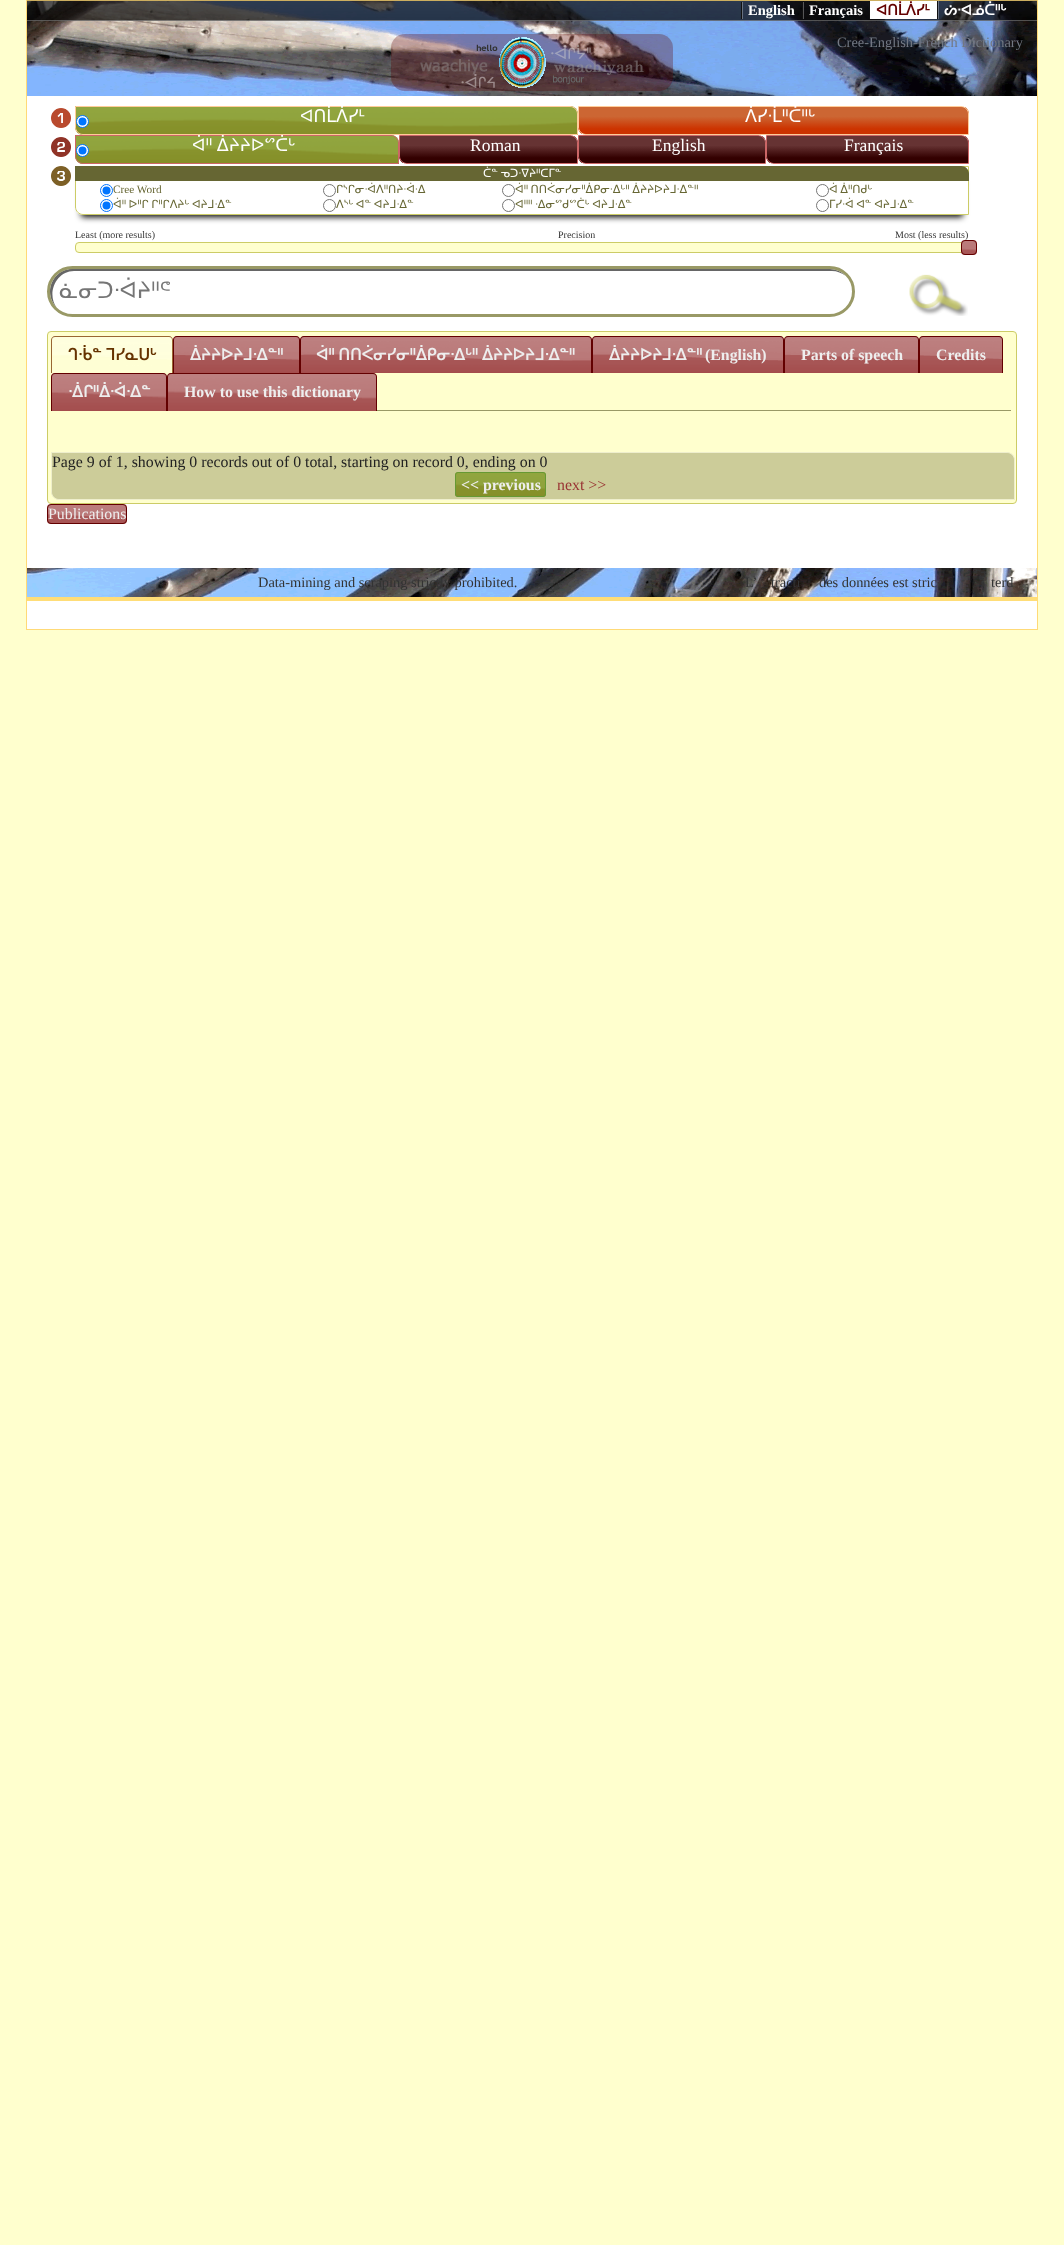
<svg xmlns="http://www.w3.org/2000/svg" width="1064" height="2245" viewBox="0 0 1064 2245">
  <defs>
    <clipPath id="clip1"><path d="M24 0H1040V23H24ZM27 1H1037V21H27Z" clip-rule="evenodd"/></clipPath>
    <filter id="blur1" x="-50%" y="-200%" width="200%" height="500%"><feGaussianBlur stdDeviation="0.5"/></filter>
    <clipPath id="clip2"><path d="M578 106H961C965.5 106 969 109.5 969 114V135H586C581.5 135 578 131.5 578 127Z"/></clipPath>
    <linearGradient id="g1" gradientUnits="userSpaceOnUse" x1="579" y1="134" x2="579" y2="107"><stop offset="0.19" stop-color="#cc3300"/><stop offset="0.65" stop-color="#cc6633"/></linearGradient>
    <clipPath id="clip3"><path d="M399 135H570C574.5 135 578 138.5 578 143V164H407C402.5 164 399 160.5 399 156Z"/></clipPath>
    <linearGradient id="g2" gradientUnits="userSpaceOnUse" x1="400" y1="163" x2="400" y2="136"><stop offset="0.19" stop-color="#330000"/><stop offset="0.65" stop-color="#663333"/></linearGradient>
    <clipPath id="clip4"><path d="M578 135H758C762.5 135 766 138.5 766 143V164H586C581.5 164 578 160.5 578 156Z"/></clipPath>
    <linearGradient id="g3" gradientUnits="userSpaceOnUse" x1="579" y1="163" x2="579" y2="136"><stop offset="0.19" stop-color="#330000"/><stop offset="0.65" stop-color="#663333"/></linearGradient>
    <clipPath id="clip5"><path d="M766 135H961C965.5 135 969 138.5 969 143V164H774C769.5 164 766 160.5 766 156Z"/></clipPath>
    <linearGradient id="g4" gradientUnits="userSpaceOnUse" x1="767" y1="163" x2="767" y2="136"><stop offset="0.19" stop-color="#330000"/><stop offset="0.65" stop-color="#663333"/></linearGradient>
    <clipPath id="clip6"><path d="M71 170H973V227H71ZM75 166H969V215H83C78.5 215 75 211.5 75 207Z" clip-rule="evenodd"/></clipPath>
    <filter id="blur2" x="-50%" y="-200%" width="200%" height="500%"><feGaussianBlur stdDeviation="3"/></filter>
  </defs>
  <rect width="100%" height="100%" fill="#ffffce"/>
  <rect x="27" y="601" width="1010" height="28" fill="#ffffff"/>
  <rect x="26.5" y="0.5" width="1011" height="629" fill="none" stroke="#ffda77"/>
  <image x="27" y="1" width="1010" height="596" href="img1.png"/>
  <rect x="27" y="597" width="1010" height="4" fill="#ffdd77"/>
  <g clip-path="url(#clip1)">
    <rect x="27" y="0" width="1010" height="20" fill="#000000" fill-opacity="0.2" filter="url(#blur1)"/>
  </g>
  <rect x="27" y="20" width="1010" height="1" fill="#ffffff" fill-opacity="0.3"/>
  <text x="748" y="15" font-family="Liberation Serif" font-size="14.5" font-weight="bold" fill="#ffffff">English</text>
  <rect x="742" y="2" width="1" height="17" fill="#ffffff" fill-opacity="0.3"/>
  <rect x="741" y="2" width="1" height="17" fill="#111111"/>
  <text x="809" y="15" font-family="Liberation Serif" font-size="14.5" font-weight="bold" fill="#ffffff">Français</text>
  <rect x="803" y="2" width="1" height="17" fill="#ffffff" fill-opacity="0.3"/>
  <rect x="802" y="2" width="1" height="17" fill="#111111"/>
  <rect x="870" y="1" width="68" height="18" fill="#000000" fill-opacity="0.2" filter="url(#blur1)"/>
  <rect x="870" y="1" width="67" height="18" fill="#ffffff"/>
  <text x="876" y="15" font-family="DejaVu Sans" font-size="14.5" font-weight="bold" fill="#630000">ᐊᑎᒫᐲᓯᒻ</text>
  <rect x="869" y="1" width="1" height="18" fill="#111111"/>
  <text x="944" y="15" font-family="DejaVu Sans" font-size="14.5" font-weight="bold" fill="#ffffff">ᔖᐧᐊᓅᑖᐦᒡ</text>
  <rect x="938" y="1" width="1" height="18" fill="#ffffff" fill-opacity="0.3"/>
  <rect x="937" y="1" width="1" height="18" fill="#111111"/>
  <rect x="391" y="34" width="282" height="57" rx="14" fill="#5d0000" fill-opacity="0.3"/>
  <image x="420" y="37" width="224" height="51" href="img2.png"/>
  <text x="837" y="47" font-family="Liberation Serif" font-size="14.4" fill="#727883">Cree-English-French Dictionary</text>
  <rect x="27" y="96" width="1010" height="472" fill="#ffffff"/>
  <image x="51" y="108" width="20" height="20" href="img3.png"/>
  <image x="75" y="106" width="503" height="29" href="img4.png"/>
  <path d="M75.5 106.5H570C574 106.5 577.5 110 577.5 114V134.5H83C79 134.5 75.5 131 75.5 127Z" fill="none" stroke="#ffcc99"/>
  <circle cx="82.5" cy="121.5" r="6" fill="#ffffff" stroke="#0075ff"/>
  <circle cx="82.5" cy="121.5" r="4" fill="#0075ff"/>
  <text x="300" y="122" font-family="DejaVu Sans" font-size="17.5" fill="#ffffff">ᐊᑎᒫᐲᓯᒻ</text>
  <g clip-path="url(#clip2)">
    <rect x="578" y="107" width="391" height="27" fill="url(#g1)"/>
  </g>
  <path d="M578.5 106.5H961C965 106.5 968.5 110 968.5 114V134.5H586C582 134.5 578.5 131 578.5 127Z" fill="none" stroke="#ffcc99"/>
  <text x="745" y="122" font-family="DejaVu Sans" font-size="17.5" fill="#ffffff">ᐲᓯᐧᒫᐦᑖᐦᒡ</text>
  <image x="51" y="137" width="20" height="20" href="img5.png"/>
  <image x="75" y="135" width="324" height="29" href="img6.png"/>
  <path d="M75.5 135.5H391C395 135.5 398.5 139 398.5 143V163.5H83C79 163.5 75.5 160 75.5 156Z" fill="none" stroke="#cc6666"/>
  <circle cx="82.5" cy="150.5" r="6" fill="#ffffff" stroke="#0075ff"/>
  <circle cx="82.5" cy="150.5" r="4" fill="#0075ff"/>
  <text x="192" y="151" word-spacing="-1" font-family="DejaVu Sans" font-size="17.5" fill="#ffffff">ᐋᐦ ᐄᔨᔨᐅᔥᑖᒡ</text>
  <g clip-path="url(#clip3)">
    <rect x="399" y="136" width="179" height="27" fill="url(#g2)"/>
  </g>
  <path d="M399.5 135.5H570C574 135.5 577.5 139 577.5 143V163.5H407C403 163.5 399.5 160 399.5 156Z" fill="none" stroke="#cc6666"/>
  <text x="470" y="151" font-family="Liberation Serif" font-size="17.5" fill="#ffffff">Roman</text>
  <g clip-path="url(#clip4)">
    <rect x="578" y="136" width="188" height="27" fill="url(#g3)"/>
  </g>
  <path d="M578.5 135.5H758C762 135.5 765.5 139 765.5 143V163.5H586C582 163.5 578.5 160 578.5 156Z" fill="none" stroke="#cc6666"/>
  <text x="652" y="151" font-family="Liberation Serif" font-size="17.5" fill="#ffffff">English</text>
  <g clip-path="url(#clip5)">
    <rect x="766" y="136" width="203" height="27" fill="url(#g4)"/>
  </g>
  <path d="M766.5 135.5H961C965 135.5 968.5 139 968.5 143V163.5H774C770 163.5 766.5 160 766.5 156Z" fill="none" stroke="#cc6666"/>
  <text x="844" y="151" font-family="Liberation Serif" font-size="17.5" fill="#ffffff">Français</text>
  <image x="51" y="166" width="20" height="20" href="img7.png"/>
  <g clip-path="url(#clip6)">
    <rect x="81" y="180" width="882" height="37" rx="2" fill="#000000" filter="url(#blur2)"/>
  </g>
  <path d="M75.5 166.5H968.5V214.5H83C79 214.5 75.5 211 75.5 207Z" fill="none" stroke="#cccc66"/>
  <path d="M75 166H961C965.5 166 969 169.5 969 174V181H75Z" fill="#666633"/>
  <text x="483" y="177" word-spacing="-1" font-family="DejaVu Sans" font-size="11.25" fill="#ffffff">ᑖᓐ ᓀᑐᐧᐁᔨᐦᑕᒥᓐ</text>
  <circle cx="106.5" cy="190.5" r="6" fill="none" stroke="#0075ff"/>
  <circle cx="106.5" cy="190.5" r="4" fill="#0075ff"/>
  <text x="113" y="193" font-family="Liberation Serif" font-size="11.25" fill="#666633">Cree Word</text>
  <circle cx="329.5" cy="190.5" r="6" fill="none" stroke="#767676"/>
  <text x="336" y="193" font-family="DejaVu Sans" font-size="11.25" fill="#666633">ᒋᔅᒋᓂᐧᐋᐱᐦᑎᔨᐧᐋᐧᐃ</text>
  <circle cx="508.5" cy="190.5" r="6" fill="none" stroke="#767676"/>
  <text x="515" y="193" word-spacing="-1" font-family="DejaVu Sans" font-size="11.25" fill="#666633">ᐋᐦ ᑎᑎᐹᓂᓯᓂᐦᐄᑭᓂᐧᐃᒡᐦ ᐄᔨᔨᐅᔨᒧᐧᐃᓐᐦ</text>
  <circle cx="822.5" cy="190.5" r="6" fill="none" stroke="#767676"/>
  <text x="829" y="193" word-spacing="-1" font-family="DejaVu Sans" font-size="11.25" fill="#666633">ᐋ ᐄᐦᑎᑯᒡ</text>
  <circle cx="106.5" cy="205.5" r="6" fill="none" stroke="#0075ff"/>
  <circle cx="106.5" cy="205.5" r="4" fill="#0075ff"/>
  <text x="113" y="208" word-spacing="-1" font-family="DejaVu Sans" font-size="11.25" fill="#666633">ᐋᐦ ᐅᐦᒋ ᒋᐦᒋᐱᔨᒡ ᐊᔨᒧᐧᐃᓐ</text>
  <circle cx="329.5" cy="205.5" r="6" fill="none" stroke="#767676"/>
  <text x="336" y="208" word-spacing="-1" font-family="DejaVu Sans" font-size="11.25" fill="#666633">ᐱᔅᒡ ᐊᓐ ᐊᔨᒧᐧᐃᓐ</text>
  <circle cx="508.5" cy="205.5" r="6" fill="none" stroke="#767676"/>
  <text x="515" y="208" word-spacing="-1" font-family="DejaVu Sans" font-size="11.25" fill="#666633">ᐊᐦᐦ ᐧᐃᓂᔥᑯᔥᑖᒡ ᐊᔨᒧᐧᐃᓐ</text>
  <circle cx="822.5" cy="205.5" r="6" fill="none" stroke="#767676"/>
  <text x="829" y="208" word-spacing="-1" font-family="DejaVu Sans" font-size="11.25" fill="#666633">ᒥᓯᐧᐋ ᐊᓐ ᐊᔨᒧᐧᐃᓐ</text>
  <text x="75" y="238" font-family="Liberation Serif" font-size="10" fill="#333333">Least (more results)</text>
  <text x="558" y="238" font-family="Liberation Serif" font-size="10" fill="#333333">Precision</text>
  <text x="895" y="238" font-family="Liberation Serif" font-size="10" fill="#333333">Most (less results)</text>
  <rect x="75.5" y="242.5" width="893" height="10" rx="3.5" fill="#ffffce" stroke="#cccc66"/>
  <image x="961" y="240" width="16" height="15" href="img8.png"/>
  <rect x="961.5" y="240.5" width="15" height="14" rx="3.5" fill="none" stroke="#630000"/>
  <path d="M74 271H832C837 271 842 273 846 276C842 272 836 269 830 269H72C60 269 50 279 50 292C50 298 53 304 57 308C46 294 56 271 74 271Z" fill="#666666"/>
  <rect x="48.5" y="267.5" width="805" height="48" rx="24" fill="none" stroke="#999966" stroke-width="3"/>
  <text x="59" y="298" font-family="DejaVu Sans" font-size="22.5" fill="#757575">ᓈᓂᑐᐧᐋᔨᐦᕪ</text>
  <image x="909" y="274" width="59" height="42" href="img9.png"/>
  <rect x="47.5" y="331.5" width="969" height="172" rx="3.5" fill="#ffffce" stroke="#cccc66"/>
  <rect x="377" y="410" width="634" height="1" fill="#999966"/>
  <image x="51" y="336" width="122" height="37" href="img10.png"/>
  <path d="M55 336H169C171 336 173 338 173 340V373H51V340C51 338 53 336 55 336ZM55 337H169C171 337 172 338 172 340V373H52V340C52 338 53 337 55 337Z" fill="#996633" fill-rule="evenodd"/>
  <text x="68" y="360" word-spacing="-1" font-family="DejaVu Sans" font-size="15.85" font-weight="bold" fill="#663300">ᒉᐧᑳᓐ ᒣᓯᓇᑌᒡ</text>
  <image x="173" y="336" width="127" height="37" href="img11.png"/>
  <path d="M177 336H296C298 336 300 338 300 340V373H173V340C173 338 175 336 177 336ZM177 337H296C298 337 299 338 299 340V373H174V340C174 338 175 337 177 337Z" fill="#630000" fill-rule="evenodd"/>
  <text x="190" y="360" font-family="DejaVu Sans" font-size="15.85" font-weight="bold" fill="#eeeeee">ᐄᔨᔨᐅᔨᒧᐧᐃᓐᐦ</text>
  <image x="300" y="336" width="292" height="37" href="img12.png"/>
  <path d="M304 336H588C590 336 592 338 592 340V373H300V340C300 338 302 336 304 336ZM304 337H588C590 337 591 338 591 340V373H301V340C301 338 302 337 304 337Z" fill="#630000" fill-rule="evenodd"/>
  <text x="316" y="360" word-spacing="-1" font-family="DejaVu Sans" font-size="15.85" font-weight="bold" fill="#eeeeee">ᐋᐦ ᑎᑎᐹᓂᓯᓂᐦᐄᑭᓂᐧᐃᒡᐦ ᐄᔨᔨᐅᔨᒧᐧᐃᓐᐦ</text>
  <image x="592" y="336" width="192" height="37" href="img13.png"/>
  <path d="M596 336H780C782 336 784 338 784 340V373H592V340C592 338 594 336 596 336ZM596 337H780C782 337 783 338 783 340V373H593V340C593 338 594 337 596 337Z" fill="#630000" fill-rule="evenodd"/>
  <text x="609" y="360" font-family="DejaVu Sans" font-size="15.85" font-weight="bold" fill="#eeeeee">ᐄᔨᔨᐅᔨᒧᐧᐃᓐᐦ</text>
  <text x="705" y="360" font-family="Liberation Serif" font-size="15.85" font-weight="bold" fill="#eeeeee">(English)</text>
  <image x="784" y="336" width="135" height="37" href="img14.png"/>
  <path d="M788 336H915C917 336 919 338 919 340V373H784V340C784 338 786 336 788 336ZM788 337H915C917 337 918 338 918 340V373H785V340C785 338 786 337 788 337Z" fill="#630000" fill-rule="evenodd"/>
  <text x="801" y="360" font-family="Liberation Serif" font-size="15.85" font-weight="bold" fill="#eeeeee">Parts of speech</text>
  <image x="919" y="336" width="84" height="37" href="img15.png"/>
  <path d="M923 336H999C1001 336 1003 338 1003 340V373H919V340C919 338 921 336 923 336ZM923 337H999C1001 337 1002 338 1002 340V373H920V340C920 338 921 337 923 337Z" fill="#630000" fill-rule="evenodd"/>
  <text x="936" y="360" font-family="Liberation Serif" font-size="15.85" font-weight="bold" fill="#eeeeee">Credits</text>
  <image x="51" y="373" width="116" height="38" href="img16.png"/>
  <path d="M55 373H163C165 373 167 375 167 377V411H51V377C51 375 53 373 55 373ZM55 374H163C165 374 166 375 166 377V411H52V377C52 375 53 374 55 374Z" fill="#630000" fill-rule="evenodd"/>
  <text x="68" y="397" font-family="DejaVu Sans" font-size="15.85" font-weight="bold" fill="#eeeeee">ᐧᐄᒋᐦᐄᐧᐋᐧᐃᓐ</text>
  <image x="167" y="373" width="210" height="38" href="img17.png"/>
  <path d="M171 373H373C375 373 377 375 377 377V411H167V377C167 375 169 373 171 373ZM171 374H373C375 374 376 375 376 377V411H168V377C168 375 169 374 171 374Z" fill="#630000" fill-rule="evenodd"/>
  <text x="184" y="397" font-family="Liberation Serif" font-size="15.85" font-weight="bold" fill="#eeeeee">How to use this dictionary</text>
  <path d="M51.5 452.5H1007C1011 452.5 1014.5 456 1014.5 460V499.5H59C55 499.5 51.5 496 51.5 492Z" fill="#cccc99" stroke="#eeeecc"/>
  <text x="52" y="467" font-family="Liberation Serif" font-size="15.85" fill="#222222">Page 9 of 1, showing 0 records out of 0 total, starting on record 0, ending on 0</text>
  <image x="455" y="472" width="91" height="25" href="img18.png"/>
  <rect x="455.5" y="472.5" width="90" height="24" rx="2.5" fill="none" stroke="#669933"/>
  <text x="461" y="490" font-family="Liberation Serif" font-size="15.85" font-weight="bold" fill="#eeeeee">&lt;&lt; previous</text>
  <text x="557" y="490" font-family="Liberation Serif" font-size="15.85" fill="#993333">next &gt;&gt;</text>
  <image x="47" y="504" width="80" height="20" href="img19.png"/>
  <rect x="47.5" y="504.5" width="79" height="19" rx="3.5" fill="none" stroke="#630000"/>
  <text x="48" y="519" font-family="Liberation Serif" font-size="15.85" fill="#eeeeee">Publications</text>
  <text x="258" y="587" font-family="Liberation Serif" font-size="14.4" fill="#333333">Data-mining and scraping strictly prohibited.</text>
  <text x="745" y="587" font-family="Liberation Serif" font-size="14.4" fill="#333333">L’</text>
  <text x="771" y="587" font-family="Liberation Serif" font-size="14.4" fill="#333333">tracti</text>
  <text x="819" y="587" font-family="Liberation Serif" font-size="14.4" fill="#333333">des données est stric</text>
  <text x="991" y="587" font-family="Liberation Serif" font-size="14.4" fill="#333333">terd</text>
</svg>
